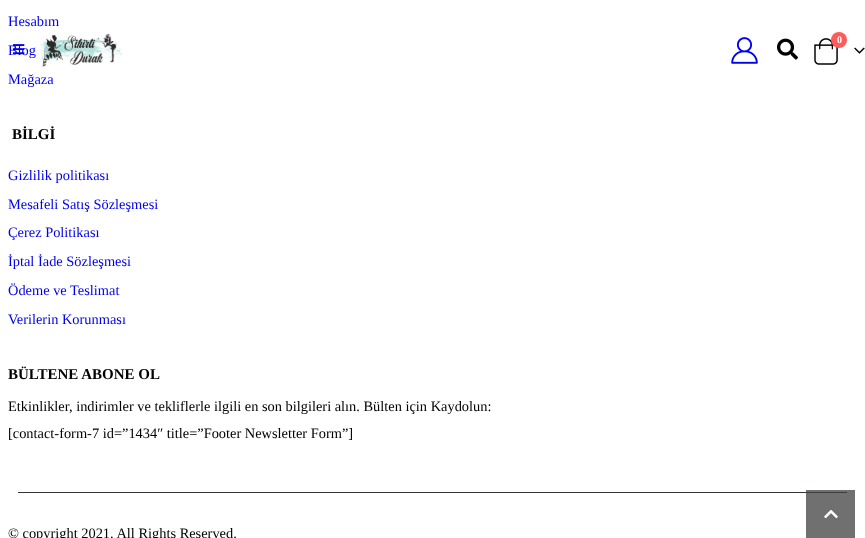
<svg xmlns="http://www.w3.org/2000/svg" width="865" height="538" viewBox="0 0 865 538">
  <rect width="100%" height="100%" fill="#ffffff"/>
  <rect x="806" y="490" width="49" height="48" fill="#707070"/>
  <text x="8" y="26" font-family="Liberation Serif" font-size="14.4" fill="#0000ee">Hesabım</text>
  <text x="8" y="55" font-family="Liberation Serif" font-size="14.4" fill="#0000ee">Blog</text>
  <text x="8" y="84" font-family="Liberation Serif" font-size="14.4" fill="#0000ee">Mağaza</text>
  <text x="12" y="139" font-family="Liberation Serif" font-size="15" font-weight="bold" fill="#000000">BİLGİ</text>
  <text x="8" y="180" font-family="Liberation Serif" font-size="14.4" fill="#0000ee">Gizlilik politikası</text>
  <text x="8" y="209" font-family="Liberation Serif" font-size="14.4" fill="#0000ee">Mesafeli Satış Sözleşmesi</text>
  <text x="8" y="237" font-family="Liberation Serif" font-size="14.4" fill="#0000ee">Çerez Politikası</text>
  <text x="8" y="266" font-family="Liberation Serif" font-size="14.4" fill="#0000ee">İptal İade Sözleşmesi</text>
  <text x="8" y="295" font-family="Liberation Serif" font-size="14.4" fill="#0000ee">Ödeme ve Teslimat</text>
  <text x="8" y="324" font-family="Liberation Serif" font-size="14.4" fill="#0000ee">Verilerin Korunması</text>
  <text x="8" y="379" font-family="Liberation Serif" font-size="15" font-weight="bold" fill="#000000">BÜLTENE ABONE OL</text>
  <text x="8" y="411" font-family="Liberation Serif" font-size="14.4" fill="#000000">Etkinlikler, indirimler ve tekliflerle ilgili en son bilgileri alın. Bülten için Kaydolun:</text>
  <text x="8" y="438" font-family="Liberation Serif" font-size="14.4" fill="#000000">[contact-form-7 id=”1434″ title=”Footer Newsletter Form”]</text>
  <rect x="18" y="492" width="788" height="1" fill="#313438"/>
  <rect x="806" y="492" width="41" height="1" fill="#3c3d3e"/>
  <text x="8" y="538" font-family="Liberation Serif" font-size="14.4" fill="#000000">© copyright 2021. All Rights Reserved.</text>
  <image x="13" y="44" width="12" height="11" href="img1.png"/>
  <image x="39" y="34" width="83" height="33" href="img2.png"/>
  <image x="731" y="37" width="27" height="27" href="img3.png"/>
  <image x="777" y="38" width="21" height="22" href="img4.png"/>
  <image x="814" y="38" width="24" height="27" href="img5.png"/>
  <circle cx="839" cy="40" r="8" fill="#ff5b5b"/>
  <text x="837" y="43" font-family="Liberation Serif" font-size="10" font-weight="bold" fill="#ffffff">0</text>
  <image x="854" y="47" width="11" height="7" href="img6.png"/>
  <image x="824" y="510" width="14" height="9" href="img7.png"/>
</svg>
